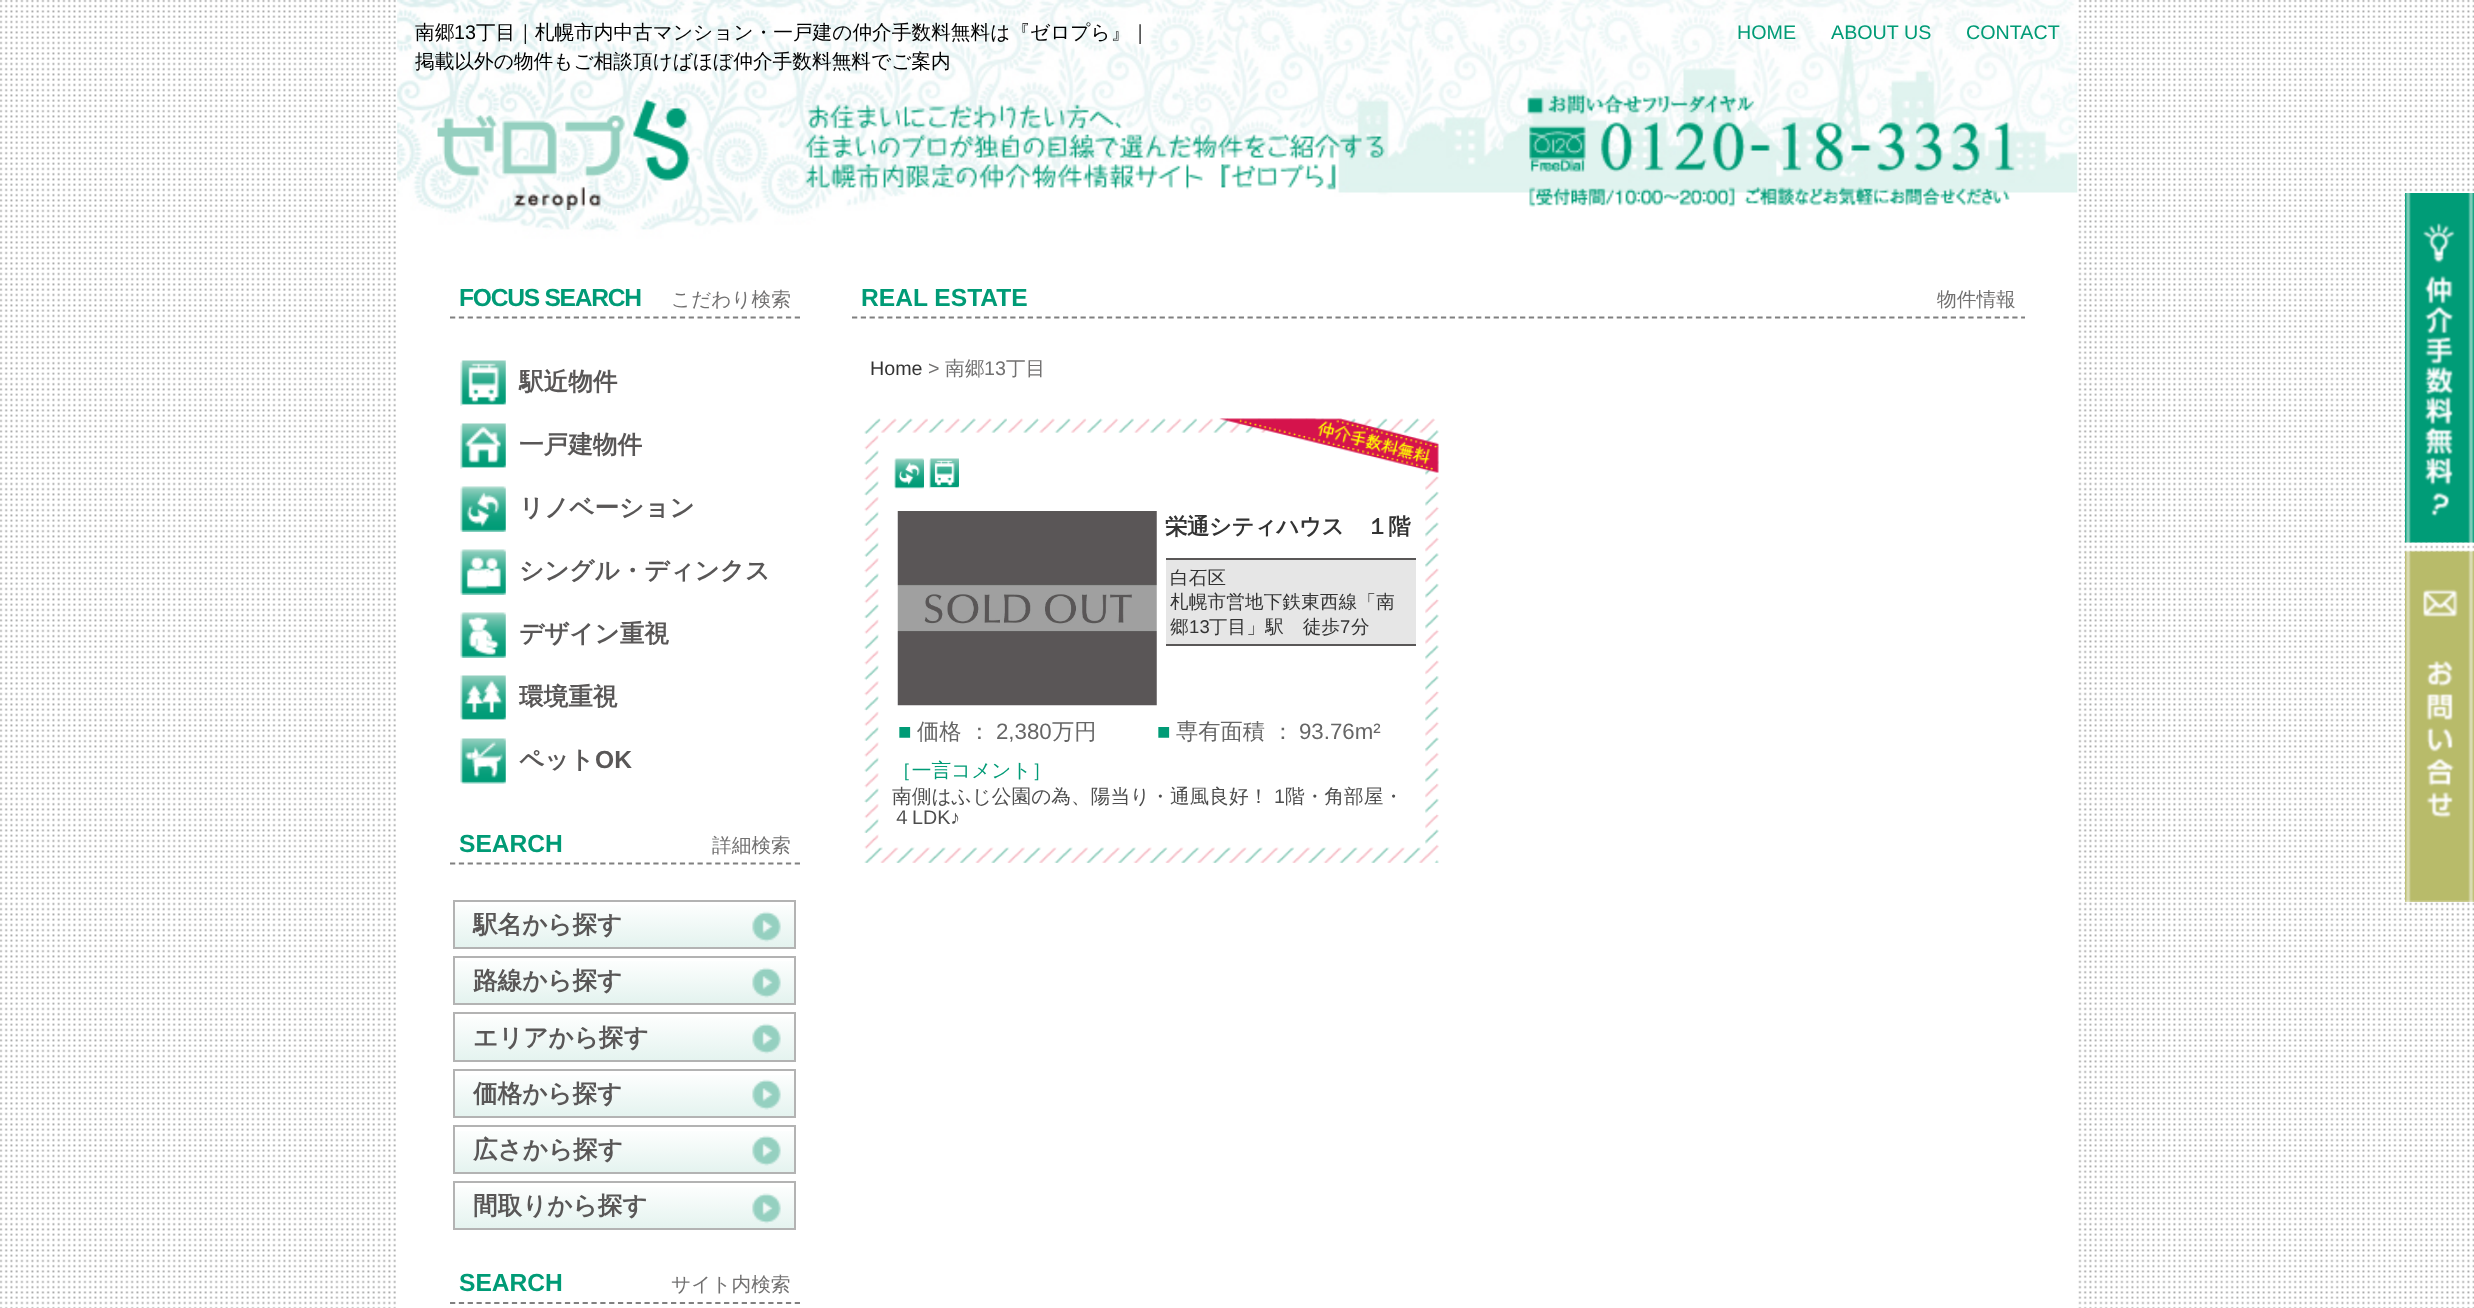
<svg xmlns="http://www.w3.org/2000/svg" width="2474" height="1308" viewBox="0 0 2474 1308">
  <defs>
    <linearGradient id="g1" gradientUnits="userSpaceOnUse" x1="625" y1="901" x2="625" y2="947"><stop offset="0" stop-color="#ffffff"/><stop offset="1" stop-color="#e4f3ef"/></linearGradient>
    <linearGradient id="g2" gradientUnits="userSpaceOnUse" x1="625" y1="957" x2="625" y2="1003"><stop offset="0" stop-color="#ffffff"/><stop offset="1" stop-color="#e4f3ef"/></linearGradient>
    <linearGradient id="g3" gradientUnits="userSpaceOnUse" x1="625" y1="1013" x2="625" y2="1061"><stop offset="0" stop-color="#ffffff"/><stop offset="1" stop-color="#e4f3ef"/></linearGradient>
    <linearGradient id="g4" gradientUnits="userSpaceOnUse" x1="625" y1="1071" x2="625" y2="1117"><stop offset="0" stop-color="#ffffff"/><stop offset="1" stop-color="#e4f3ef"/></linearGradient>
    <linearGradient id="g5" gradientUnits="userSpaceOnUse" x1="625" y1="1127" x2="625" y2="1173"><stop offset="0" stop-color="#ffffff"/><stop offset="1" stop-color="#e4f3ef"/></linearGradient>
    <linearGradient id="g6" gradientUnits="userSpaceOnUse" x1="625" y1="1183" x2="625" y2="1229"><stop offset="0" stop-color="#ffffff"/><stop offset="1" stop-color="#e4f3ef"/></linearGradient>
  </defs>
  <rect width="100%" height="100%" fill="#ffffff"/>
  <image x="0" y="0" width="2474" height="1308" href="img1.png"/>
  <image x="397" y="0" width="1681" height="244" href="img2.png"/>
  <text x="415" y="39" font-family="WenQuanYi Zen Hei" font-size="19.7" font-weight="500" fill="#000000">南郷</text>
  <text x="454" y="39" font-family="Liberation Sans" font-size="19.7" fill="#000000">13</text>
  <text x="476" y="39" font-family="WenQuanYi Zen Hei" font-size="19.7" font-weight="500" fill="#000000">丁目｜札幌市内中古マンション・一戸建の仲介手数料無料は『ゼロプら』｜</text>
  <text x="415" y="68" font-family="WenQuanYi Zen Hei" font-size="19.7" font-weight="500" fill="#000000">掲載以外の物件もご相談頂けばほぼ仲介手数料無料でご案内</text>
  <text x="1737" y="39" font-family="Liberation Sans" font-size="19.7" fill="#009b76">HOME</text>
  <text x="1831" y="39" font-family="Liberation Sans" font-size="19.7" fill="#009b76">ABOUT US</text>
  <text x="1966" y="39" font-family="Liberation Sans" font-size="19.7" fill="#009b76">CONTACT</text>
  <image x="433" y="95" width="260" height="115" href="img3.png"/>
  <image x="804" y="104" width="581" height="86" href="img4.png"/>
  <image x="1527" y="94" width="488" height="113" href="img5.png"/>
  <rect x="398" y="246" width="1678" height="1062" fill="#ffffff"/>
  <path d="M450 317.5H800" fill="none" stroke="#808080" stroke-width="1.8" stroke-dasharray="5.25 3.59"/>
  <text x="459" y="306" font-family="Liberation Sans" font-size="24.6" font-weight="bold" letter-spacing="-1.25" fill="#009b76">FOCUS SEARCH</text>
  <text x="671" y="306" font-family="WenQuanYi Zen Hei" font-size="19.7" font-weight="500" fill="#727171">こだわり検索</text>
  <image x="460" y="360" width="46" height="46" href="img6.png"/>
  <text x="519" y="390" font-family="WenQuanYi Zen Hei" font-size="24.6" font-weight="bold" fill="#595757">駅近物件</text>
  <image x="460" y="423" width="46" height="46" href="img7.png"/>
  <text x="519" y="453" font-family="WenQuanYi Zen Hei" font-size="24.6" font-weight="bold" fill="#595757">一戸建物件</text>
  <image x="460" y="486" width="46" height="46" href="img8.png"/>
  <text x="519" y="516" font-family="WenQuanYi Zen Hei" font-size="24.6" font-weight="bold" fill="#595757">リノベーション</text>
  <image x="460" y="549" width="46" height="46" href="img9.png"/>
  <text x="519" y="579" font-family="WenQuanYi Zen Hei" font-size="24.6" font-weight="bold" fill="#595757">シングル・ディンクス</text>
  <image x="460" y="612" width="46" height="46" href="img10.png"/>
  <text x="519" y="642" font-family="WenQuanYi Zen Hei" font-size="24.6" font-weight="bold" fill="#595757">デザイン重視</text>
  <image x="460" y="675" width="46" height="45" href="img11.png"/>
  <text x="519" y="705" font-family="WenQuanYi Zen Hei" font-size="24.6" font-weight="bold" fill="#595757">環境重視</text>
  <image x="460" y="738" width="46" height="46" href="img12.png"/>
  <text x="519" y="768" font-family="WenQuanYi Zen Hei" font-size="24.6" font-weight="bold" fill="#595757">ペット</text>
  <text x="595" y="768" font-family="Liberation Sans" font-size="24.6" font-weight="bold" fill="#595757">OK</text>
  <path d="M450 863.5H800" fill="none" stroke="#808080" stroke-width="1.8" stroke-dasharray="5.25 3.59"/>
  <text x="459" y="852" font-family="Liberation Sans" font-size="24.6" font-weight="bold" fill="#009b76">SEARCH</text>
  <text x="712" y="852" font-family="WenQuanYi Zen Hei" font-size="19.7" font-weight="500" fill="#727171">詳細検索</text>
  <rect x="455" y="905" width="339" height="42" fill="url(#g1)"/>
  <rect x="454" y="901" width="341" height="47" fill="none" stroke="#b3b3b3" stroke-width="2"/>
  <text x="473" y="933" font-family="WenQuanYi Zen Hei" font-size="24.6" font-weight="bold" fill="#595757">駅名から探す</text>
  <image x="752" y="911" width="29" height="31" href="img13.png"/>
  <rect x="455" y="961" width="339" height="42" fill="url(#g2)"/>
  <rect x="454" y="957" width="341" height="47" fill="none" stroke="#b3b3b3" stroke-width="2"/>
  <text x="473" y="989" font-family="WenQuanYi Zen Hei" font-size="24.6" font-weight="bold" fill="#595757">路線から探す</text>
  <image x="752" y="967" width="29" height="31" href="img13.png"/>
  <rect x="455" y="1017" width="339" height="43" fill="url(#g3)"/>
  <rect x="454" y="1013" width="341" height="48" fill="none" stroke="#b3b3b3" stroke-width="2"/>
  <text x="473" y="1046" font-family="WenQuanYi Zen Hei" font-size="24.6" font-weight="bold" fill="#595757">エリアから探す</text>
  <image x="752" y="1023" width="29" height="31" href="img14.png"/>
  <rect x="455" y="1075" width="339" height="41" fill="url(#g4)"/>
  <rect x="454" y="1070" width="341" height="47" fill="none" stroke="#b3b3b3" stroke-width="2"/>
  <text x="473" y="1102" font-family="WenQuanYi Zen Hei" font-size="24.6" font-weight="bold" fill="#595757">価格から探す</text>
  <image x="752" y="1079" width="29" height="31" href="img15.png"/>
  <rect x="455" y="1131" width="339" height="41" fill="url(#g5)"/>
  <rect x="454" y="1126" width="341" height="47" fill="none" stroke="#b3b3b3" stroke-width="2"/>
  <text x="473" y="1158" font-family="WenQuanYi Zen Hei" font-size="24.6" font-weight="bold" fill="#595757">広さから探す</text>
  <image x="752" y="1135" width="29" height="31" href="img15.png"/>
  <rect x="455" y="1187" width="339" height="41" fill="url(#g6)"/>
  <rect x="454" y="1182" width="341" height="47" fill="none" stroke="#b3b3b3" stroke-width="2"/>
  <text x="473" y="1214" font-family="WenQuanYi Zen Hei" font-size="24.6" font-weight="bold" fill="#595757">間取りから探す</text>
  <image x="752" y="1193" width="29" height="31" href="img16.png"/>
  <path d="M450 1303H800" fill="none" stroke="#808080" stroke-width="1.8" stroke-dasharray="5.25 3.59"/>
  <text x="459" y="1291" font-family="Liberation Sans" font-size="24.6" font-weight="bold" fill="#009b76">SEARCH</text>
  <text x="671" y="1291" font-family="WenQuanYi Zen Hei" font-size="19.7" font-weight="500" fill="#727171">サイト内検索</text>
  <path d="M852 317.5H2025" fill="none" stroke="#808080" stroke-width="1.8" stroke-dasharray="5.25 3.54"/>
  <text x="861" y="306" font-family="Liberation Sans" font-size="24.6" font-weight="bold" fill="#009b76">REAL ESTATE</text>
  <text x="1937" y="306" font-family="WenQuanYi Zen Hei" font-size="19.7" font-weight="500" fill="#727171">物件情報</text>
  <text x="870" y="375" font-family="Liberation Sans" font-size="19.7" fill="#333333">Home</text>
  <text x="928" y="375" font-family="Liberation Sans" font-size="19.7" fill="#727171">&gt;</text>
  <text x="945" y="375" font-family="WenQuanYi Zen Hei" font-size="19.7" font-weight="500" fill="#727171">南郷</text>
  <text x="984" y="375" font-family="Liberation Sans" font-size="19.7" fill="#727171">13</text>
  <text x="1006" y="375" font-family="WenQuanYi Zen Hei" font-size="19.7" font-weight="500" fill="#727171">丁目</text>
  <image x="864" y="418" width="575" height="445" href="img17.png"/>
  <image x="894" y="458" width="30" height="31" href="img18.png"/>
  <image x="929" y="458" width="30" height="31" href="img19.png"/>
  <image x="1219" y="418" width="220" height="55" href="img20.png"/>
  <image x="897" y="511" width="260" height="195" href="img21.png"/>
  <text x="1165" y="534" font-family="WenQuanYi Zen Hei" font-size="22.25" font-weight="bold" letter-spacing="-0.25" fill="#333333">栄通シティハウス　１階</text>
  <rect x="1166" y="560" width="250" height="84" fill="#e6e6e6"/>
  <rect x="1166" y="558" width="250" height="2" fill="#595757"/>
  <rect x="1166" y="644" width="250" height="2" fill="#595757"/>
  <text x="1170" y="584" font-family="WenQuanYi Zen Hei" font-size="18.5" font-weight="500" letter-spacing="0.25" fill="#333333">白石区</text>
  <text x="1170" y="608" font-family="WenQuanYi Zen Hei" font-size="18.5" font-weight="500" letter-spacing="0.25" fill="#333333">札幌市営地下鉄東西線「南</text>
  <text x="1170" y="633" font-family="WenQuanYi Zen Hei" font-size="18.5" font-weight="500" letter-spacing="0.25" fill="#333333">郷</text>
  <text x="1189" y="633" font-family="Liberation Sans" font-size="18.5" letter-spacing="0.25" fill="#333333">13</text>
  <text x="1209" y="633" font-family="WenQuanYi Zen Hei" font-size="18.5" font-weight="500" letter-spacing="0.25" fill="#333333">丁目」駅　徒歩</text>
  <text x="1340" y="633" font-family="Liberation Sans" font-size="18.5" letter-spacing="0.25" fill="#333333">7</text>
  <text x="1351" y="633" font-family="WenQuanYi Zen Hei" font-size="18.5" font-weight="500" letter-spacing="0.25" fill="#333333">分</text>
  <text x="898" y="739" font-family="Liberation Sans" font-size="22.25" fill="#009b76">■</text>
  <text x="917" y="739" font-family="WenQuanYi Zen Hei" font-size="22.25" font-weight="500" fill="#666666">価格 ：</text>
  <text x="996" y="739" font-family="Liberation Sans" font-size="22.25" fill="#666666">2,380</text>
  <text x="1052" y="739" font-family="WenQuanYi Zen Hei" font-size="22.25" font-weight="500" fill="#666666">万円</text>
  <text x="1157" y="739" font-family="Liberation Sans" font-size="22.25" fill="#009b76">■</text>
  <text x="1176" y="739" font-family="WenQuanYi Zen Hei" font-size="22.25" font-weight="500" fill="#666666">専有面積 ：</text>
  <text x="1299" y="739" font-family="Liberation Sans" font-size="22.25" fill="#666666">93.76m²</text>
  <text x="892" y="777" font-family="WenQuanYi Zen Hei" font-size="19.7" font-weight="500" fill="#009b76">［一言コメント］</text>
  <text x="892" y="803" font-family="WenQuanYi Zen Hei" font-size="19.7" font-weight="500" fill="#4d4d4d">南側はふじ公園の為、陽当り・通風良好！</text>
  <text x="1274" y="803" font-family="Liberation Sans" font-size="19.7" fill="#4d4d4d">1</text>
  <text x="1285" y="803" font-family="WenQuanYi Zen Hei" font-size="19.7" font-weight="500" fill="#4d4d4d">階・角部屋・</text>
  <text x="892" y="824" font-family="WenQuanYi Zen Hei" font-size="19.7" font-weight="500" fill="#4d4d4d">４</text>
  <text x="912" y="824" font-family="Liberation Sans" font-size="19.7" fill="#4d4d4d">LDK♪</text>
  <image x="2405" y="193" width="69" height="350" href="img22.png"/>
  <image x="2405" y="550" width="69" height="352" href="img23.png"/>
</svg>
